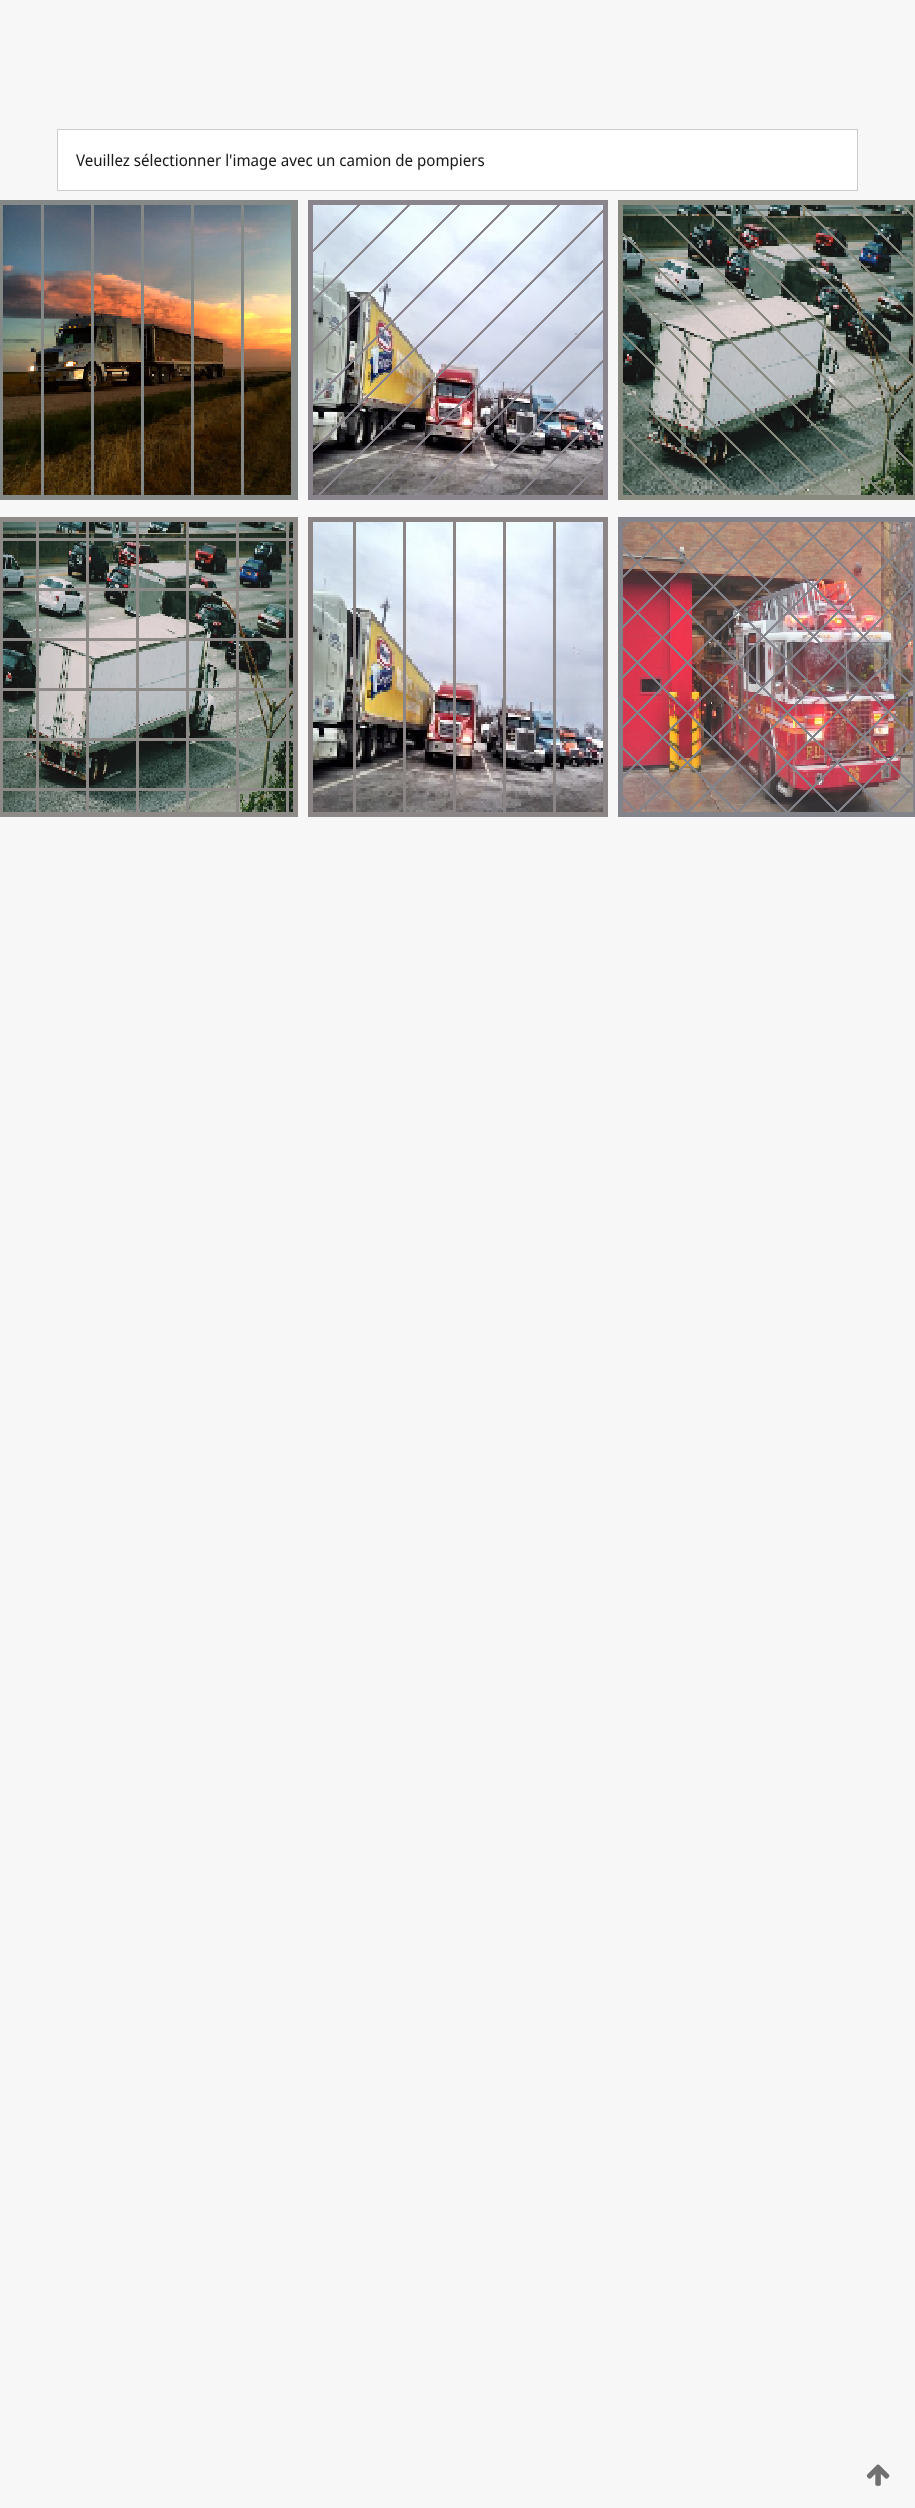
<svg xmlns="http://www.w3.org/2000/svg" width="915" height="2508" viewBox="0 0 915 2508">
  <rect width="100%" height="100%" fill="#f7f7f7"/>
  <rect x="57.5" y="129.5" width="800" height="61" fill="#ffffff" stroke="#cccccc"/>
  <text x="76" y="166" font-family="Noto Sans Display" font-size="16" fill="#1a1a1a">Veuillez sélectionner l'image avec un camion de pompiers</text>
  <image x="0" y="200" width="298" height="300" href="img1.png"/>
  <image x="308" y="200" width="300" height="300" href="img2.png"/>
  <image x="618" y="200" width="297" height="300" href="img3.png"/>
  <image x="0" y="517" width="298" height="300" href="img4.png"/>
  <image x="308" y="517" width="300" height="300" href="img5.png"/>
  <image x="618" y="517" width="297" height="300" href="img6.png"/>
  <image x="866" y="2464" width="24" height="22" href="img7.png"/>
</svg>
